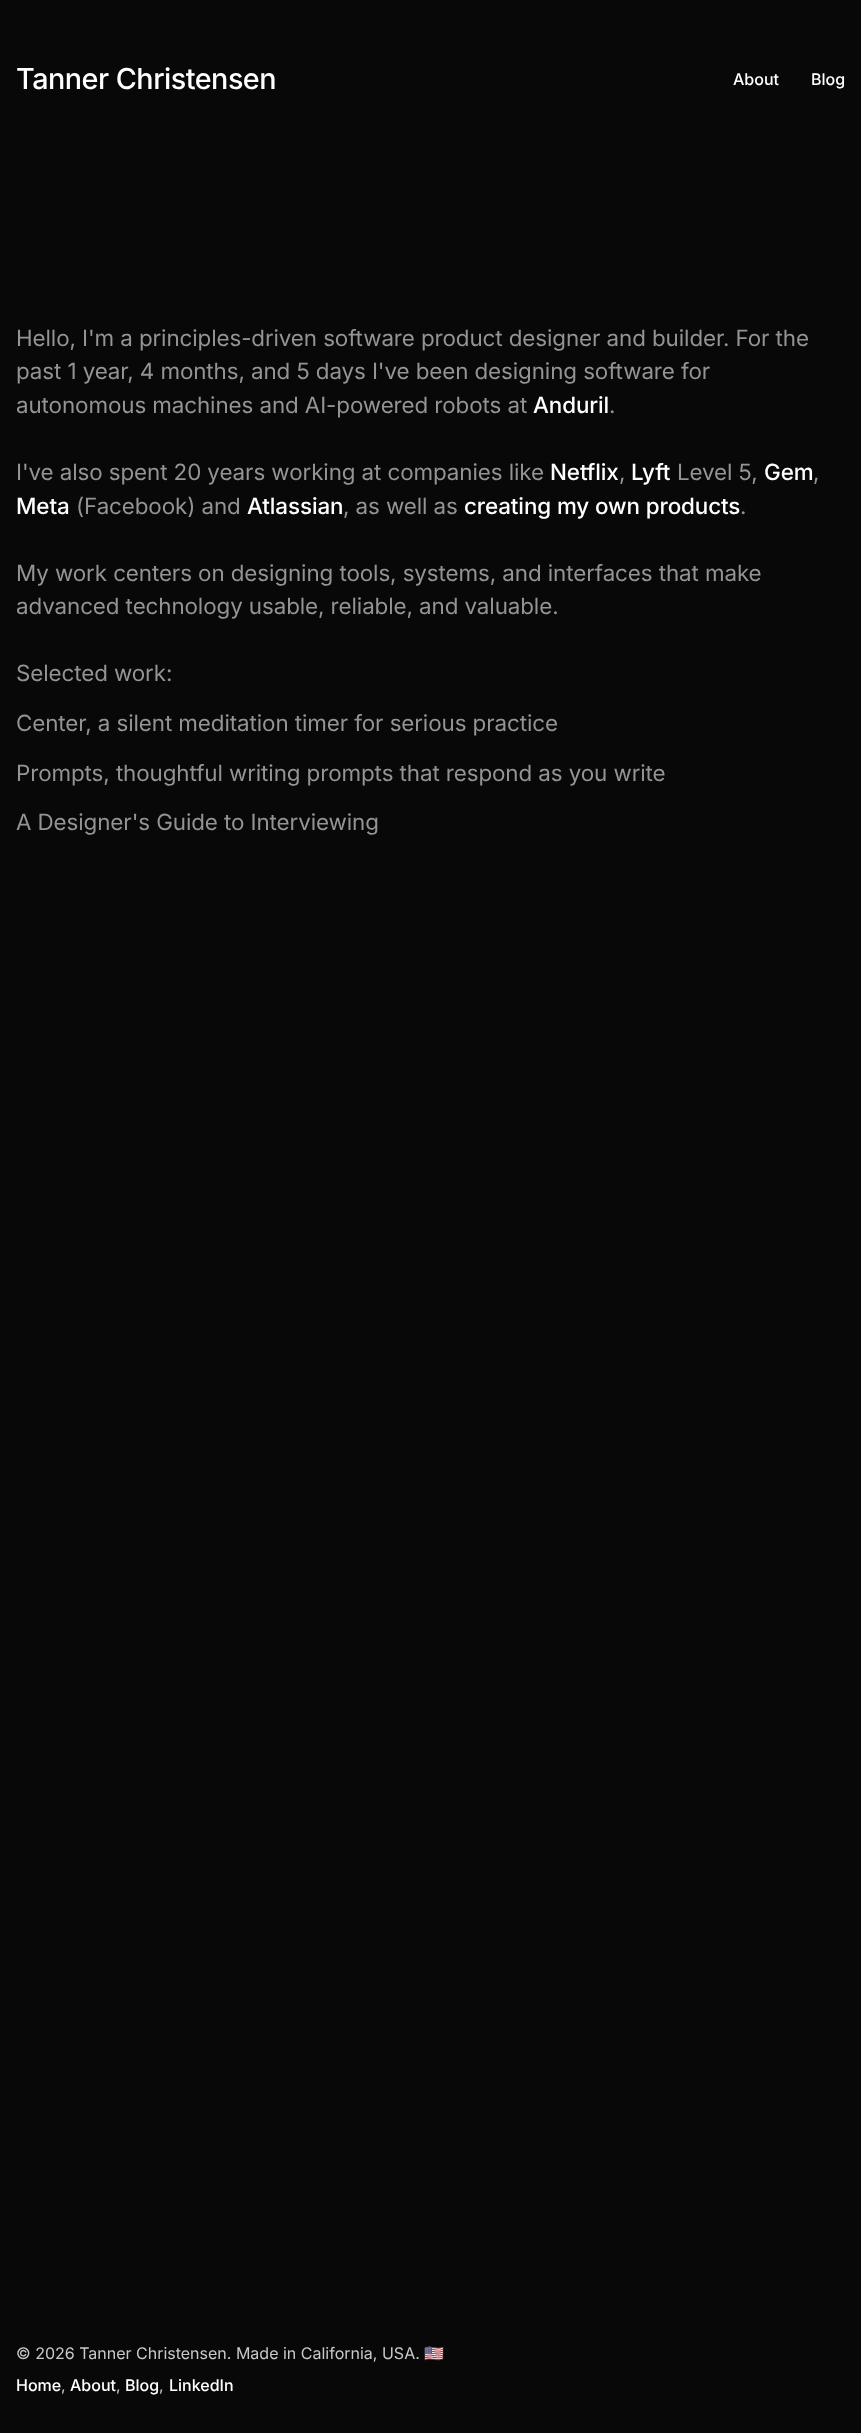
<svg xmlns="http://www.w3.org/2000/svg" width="861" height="2433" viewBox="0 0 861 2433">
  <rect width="100%" height="100%" fill="#080808"/>
  <text x="16" y="89" font-family="Inter" font-size="28.75" font-weight="500" letter-spacing="-0.5" fill="#ffffff">Tanner Christensen</text>
  <text x="733" y="85" font-family="Inter" font-size="16" font-weight="500" fill="#ffffff">About</text>
  <text x="811" y="85" font-family="Inter" font-size="16" font-weight="500" fill="#ffffff">Blog</text>
  <text x="16" y="346" font-family="Inter" font-size="22.4" letter-spacing="-0.1" fill="#949494">Hello, I'm a principles-driven software product designer and builder. For the</text>
  <text x="16" y="379" font-family="Inter" font-size="22.4" letter-spacing="-0.1" fill="#949494">past 1 year, 4 months, and 5 days I've been designing software for</text>
  <text x="16" y="413" font-family="Inter" font-size="22.4" letter-spacing="-0.1" fill="#949494">autonomous machines and AI-powered robots at</text>
  <text x="533" y="413" font-family="Inter" font-size="22.4" font-weight="500" letter-spacing="-0.1" fill="#ffffff">Anduril</text>
  <text x="609" y="413" font-family="Inter" font-size="22.4" letter-spacing="-0.1" fill="#949494">.</text>
  <text x="16" y="480" font-family="Inter" font-size="22.4" letter-spacing="-0.1" fill="#949494">I've also spent 20 years working at companies like</text>
  <text x="550" y="480" font-family="Inter" font-size="22.4" font-weight="500" letter-spacing="-0.1" fill="#ffffff">Netflix</text>
  <text x="619" y="480" font-family="Inter" font-size="22.4" letter-spacing="-0.1" fill="#949494">,</text>
  <text x="631" y="480" font-family="Inter" font-size="22.4" font-weight="500" letter-spacing="-0.1" fill="#ffffff">Lyft</text>
  <text x="677" y="480" font-family="Inter" font-size="22.4" letter-spacing="-0.1" fill="#949494">Level 5,</text>
  <text x="764" y="480" font-family="Inter" font-size="22.4" font-weight="500" letter-spacing="-0.1" fill="#ffffff">Gem</text>
  <text x="813" y="480" font-family="Inter" font-size="22.4" letter-spacing="-0.1" fill="#949494">,</text>
  <text x="16" y="514" font-family="Inter" font-size="22.4" font-weight="500" letter-spacing="-0.1" fill="#ffffff">Meta</text>
  <text x="76" y="514" font-family="Inter" font-size="22.4" letter-spacing="-0.1" fill="#949494">(Facebook) and</text>
  <text x="247" y="514" font-family="Inter" font-size="22.4" font-weight="500" letter-spacing="-0.1" fill="#ffffff">Atlassian</text>
  <text x="343" y="514" font-family="Inter" font-size="22.4" letter-spacing="-0.1" fill="#949494">, as well as</text>
  <text x="464" y="514" font-family="Inter" font-size="22.4" font-weight="500" letter-spacing="-0.1" fill="#ffffff">creating my own products</text>
  <text x="740" y="514" font-family="Inter" font-size="22.4" letter-spacing="-0.1" fill="#949494">.</text>
  <text x="16" y="581" font-family="Inter" font-size="22.4" letter-spacing="-0.1" fill="#949494">My work centers on designing tools, systems, and interfaces that make</text>
  <text x="16" y="614" font-family="Inter" font-size="22.4" letter-spacing="-0.1" fill="#949494">advanced technology usable, reliable, and valuable.</text>
  <text x="16" y="681" font-family="Inter" font-size="22.4" letter-spacing="-0.1" fill="#949494">Selected work:</text>
  <text x="16" y="731" font-family="Inter" font-size="22.4" letter-spacing="-0.1" fill="#949494">Center, a silent meditation timer for serious practice</text>
  <text x="16" y="781" font-family="Inter" font-size="22.4" letter-spacing="-0.1" fill="#949494">Prompts, thoughtful writing prompts that respond as you write</text>
  <text x="16" y="830" font-family="Inter" font-size="22.4" letter-spacing="-0.1" fill="#949494">A Designer's Guide to Interviewing</text>
  <text x="16" y="2359" font-family="Inter" font-size="16" fill="#c9c9c9">© 2026 Tanner Christensen. Made in California, USA.</text>
  <text x="424" y="2359" font-family="Noto Color Emoji" font-size="16" fill="#c9c9c9">🇺🇸</text>
  <text x="16" y="2391" font-family="Inter" font-size="16" font-weight="500" fill="#ffffff">Home</text>
  <text x="61" y="2391" font-family="Inter" font-size="16" fill="#c9c9c9">,</text>
  <text x="70" y="2391" font-family="Inter" font-size="16" font-weight="500" fill="#ffffff">About</text>
  <text x="116" y="2391" font-family="Inter" font-size="16" fill="#c9c9c9">,</text>
  <text x="125" y="2391" font-family="Inter" font-size="16" font-weight="500" fill="#ffffff">Blog</text>
  <text x="159" y="2391" font-family="Inter" font-size="16" fill="#c9c9c9">,</text>
  <text x="169" y="2391" font-family="Inter" font-size="16" font-weight="500" fill="#ffffff">LinkedIn</text>
</svg>
